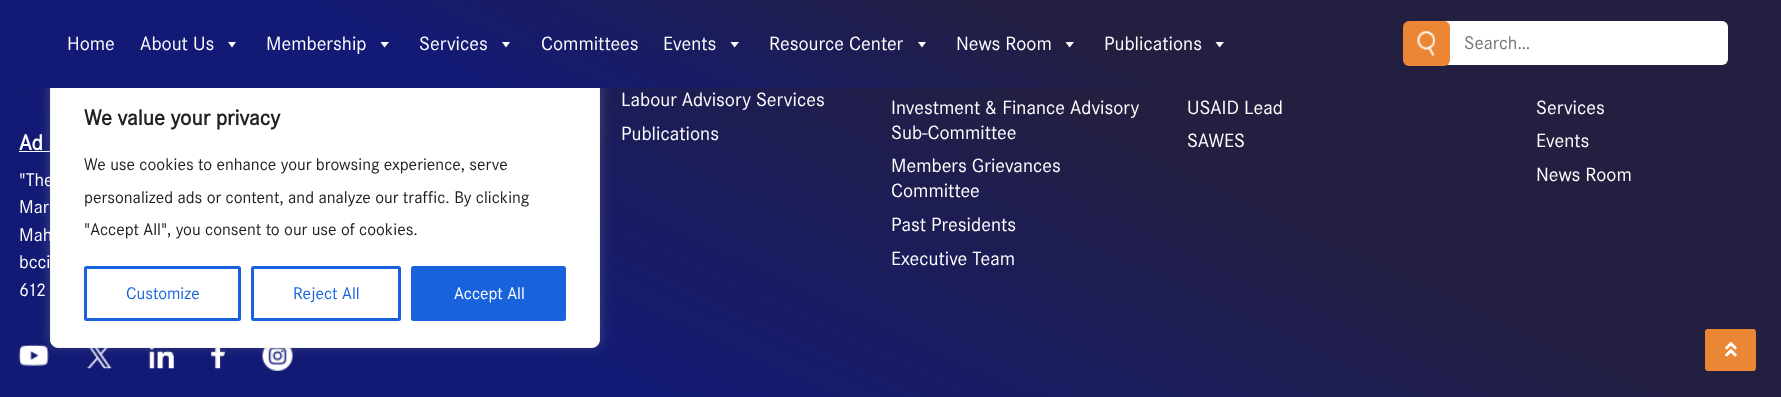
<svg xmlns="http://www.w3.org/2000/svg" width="1781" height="397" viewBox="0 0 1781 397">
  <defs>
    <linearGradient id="g1" gradientUnits="userSpaceOnUse" x1="621" y1="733" x2="1160" y2="-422"><stop offset="0.25" stop-color="#131a75"/><stop offset="0.6" stop-color="#231f41"/></linearGradient>
    <linearGradient id="g2" gradientUnits="userSpaceOnUse" x1="621" y1="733" x2="1160" y2="-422"><stop offset="0.25" stop-color="#161d6e"/><stop offset="0.6" stop-color="#252140"/></linearGradient>
    <filter id="blur1" x="-50%" y="-200%" width="200%" height="500%"><feGaussianBlur stdDeviation="6"/></filter>
    <linearGradient id="g3" gradientUnits="userSpaceOnUse" x1="715" y1="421" x2="1066" y2="-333"><stop offset="0.25" stop-color="#131a75"/><stop offset="0.6" stop-color="#231f41"/></linearGradient>
  </defs>
  <rect width="100%" height="100%" fill="#ffffff"/>
  <rect x="0" y="88" width="1781" height="309" fill="url(#g1)"/>
  <rect x="600" y="154" width="1" height="1" fill="url(#g2)"/>
  <rect x="600" y="120" width="1" height="1" fill="url(#g2)"/>
  <rect x="19" y="151" width="31" height="1" fill="#ffffff"/>
  <image x="18" y="344" width="31" height="22" href="img2.png"/>
  <image x="86" y="348" width="26" height="21" href="img3.png"/>
  <image x="148" y="348" width="26" height="21" href="img4.png"/>
  <image x="211" y="348" width="14" height="21" href="img5.png"/>
  <image x="262" y="348" width="31" height="23" href="img6.png"/>
  <rect x="50" y="76" width="550" height="270" rx="8" fill="#acabab" fill-opacity="0.3" filter="url(#blur1)"/>
  <rect x="50.5" y="78.5" width="549" height="269" rx="7.5" fill="#ffffff" stroke="#f4f4f4"/>
  <rect x="0" y="0" width="1781" height="88" fill="url(#g3)"/>
  <text x="67" y="50" font-family="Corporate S" font-size="20" fill="#ffffff">Home</text>
  <text x="140" y="50" font-family="Corporate S" font-size="20" fill="#ffffff">About Us</text>
  <path d="M236 42L232 47.5L228 42Z" fill="#ffffff"/>
  <text x="266" y="50" font-family="Corporate S" font-size="20" fill="#ffffff">Membership</text>
  <path d="M389 42L384.5 47.5L380.5 42Z" fill="#ffffff"/>
  <text x="419" y="50" font-family="Corporate S" font-size="20" fill="#ffffff">Services</text>
  <path d="M510 42L506 47.5L502 42Z" fill="#ffffff"/>
  <text x="541" y="50" font-family="Corporate S" font-size="20" fill="#ffffff">Committees</text>
  <text x="663" y="50" font-family="Corporate S" font-size="20" fill="#ffffff">Events</text>
  <path d="M739 42L734.5 47.5L730.5 42Z" fill="#ffffff"/>
  <text x="769" y="50" font-family="Corporate S" font-size="20" fill="#ffffff">Resource Center</text>
  <path d="M926 42L922 47.5L918 42Z" fill="#ffffff"/>
  <text x="956" y="50" font-family="Corporate S" font-size="20" fill="#ffffff">News Room</text>
  <path d="M1074 42L1069.5 47.5L1065.5 42Z" fill="#ffffff"/>
  <text x="1104" y="50" font-family="Corporate S" font-size="20" fill="#ffffff">Publications</text>
  <path d="M1224 42L1219.5 47.5L1215.5 42Z" fill="#ffffff"/>
  <rect x="1440" y="21" width="288" height="44" rx="6" fill="#ffffff"/>
  <rect x="1403" y="21" width="47" height="45" rx="6" fill="#ea8634"/>
  <image x="1417" y="31" width="18" height="26" href="img1.png"/>
  <text x="1464" y="49" font-family="Corporate S" font-size="19" fill="#757575">Search…</text>
  <rect x="890" y="245" width="263" height="1" fill="url(#g2)"/>
  <rect x="890" y="211" width="263" height="1" fill="url(#g2)"/>
  <rect x="890" y="153" width="199" height="1" fill="url(#g2)"/>
  <rect x="890" y="94" width="138" height="1" fill="url(#g2)"/>
  <rect x="621" y="120" width="235" height="1" fill="url(#g2)"/>
  <text x="19" y="150" font-family="Corporate S" font-size="22.5" font-weight="bold" fill="#ffffff">Ad</text>
  <text x="19" y="186" font-family="Corporate S" font-size="19" fill="#ffffff">"The</text>
  <text x="19" y="213" font-family="Corporate S" font-size="19" fill="#ffffff">Mar</text>
  <text x="19" y="241" font-family="Corporate S" font-size="19" fill="#ffffff">Mah</text>
  <text x="19" y="268" font-family="Corporate S" font-size="19" fill="#ffffff">bcci</text>
  <text x="19" y="296" font-family="Corporate S" font-size="19" fill="#ffffff">612</text>
  <text x="621" y="106" font-family="Corporate S" font-size="20" fill="#ffffff">Labour Advisory Services</text>
  <text x="621" y="140" font-family="Corporate S" font-size="20" fill="#ffffff">Publications</text>
  <text x="891" y="114" font-family="Corporate S" font-size="20" fill="#ffffff">Investment &amp; Finance Advisory</text>
  <text x="891" y="139" font-family="Corporate S" font-size="20" fill="#ffffff">Sub-Committee</text>
  <text x="891" y="172" font-family="Corporate S" font-size="20" fill="#ffffff">Members Grievances</text>
  <text x="891" y="197" font-family="Corporate S" font-size="20" fill="#ffffff">Committee</text>
  <text x="891" y="231" font-family="Corporate S" font-size="20" fill="#ffffff">Past Presidents</text>
  <text x="891" y="265" font-family="Corporate S" font-size="20" fill="#ffffff">Executive Team</text>
  <text x="1187" y="114" font-family="Corporate S" font-size="20" fill="#ffffff">USAID Lead</text>
  <text x="1187" y="147" font-family="Corporate S" font-size="20" fill="#ffffff">SAWES</text>
  <text x="1536" y="114" font-family="Corporate S" font-size="20" fill="#ffffff">Services</text>
  <text x="1536" y="147" font-family="Corporate S" font-size="20" fill="#ffffff">Events</text>
  <text x="1536" y="181" font-family="Corporate S" font-size="20" fill="#ffffff">News Room</text>
  <rect x="1705.5" y="329.5" width="50" height="41" rx="2" fill="#ea8634" stroke="#ea8634"/>
  <image x="1725" y="342" width="12" height="15" href="img7.png"/>
  <text x="84" y="125" font-family="Corporate S" font-size="22.5" font-weight="bold" fill="#212121">We value your privacy</text>
  <text x="84" y="170" font-family="Corporate S" font-size="17.5" fill="#212121">We use cookies to enhance your browsing experience, serve</text>
  <text x="84" y="203" font-family="Corporate S" font-size="17.5" fill="#212121">personalized ads or content, and analyze our traffic. By clicking</text>
  <text x="84" y="235" font-family="Corporate S" font-size="17.5" fill="#212121">"Accept All", you consent to our use of cookies.</text>
  <rect x="85.5" y="267.5" width="154" height="52" rx="1" fill="none" stroke="#1863dc" stroke-width="3"/>
  <text x="126" y="299" font-family="Corporate S" font-size="17.5" fill="#1863dc">Customize</text>
  <rect x="252.5" y="267.5" width="147" height="52" rx="1" fill="none" stroke="#1863dc" stroke-width="3"/>
  <text x="293" y="299" font-family="Corporate S" font-size="17.5" fill="#1863dc">Reject All</text>
  <rect x="412.5" y="267.5" width="152" height="52" rx="1" fill="#1863dc" stroke="#1863dc" stroke-width="3"/>
  <text x="454" y="299" font-family="Corporate S" font-size="17.5" fill="#ffffff">Accept All</text>
</svg>
